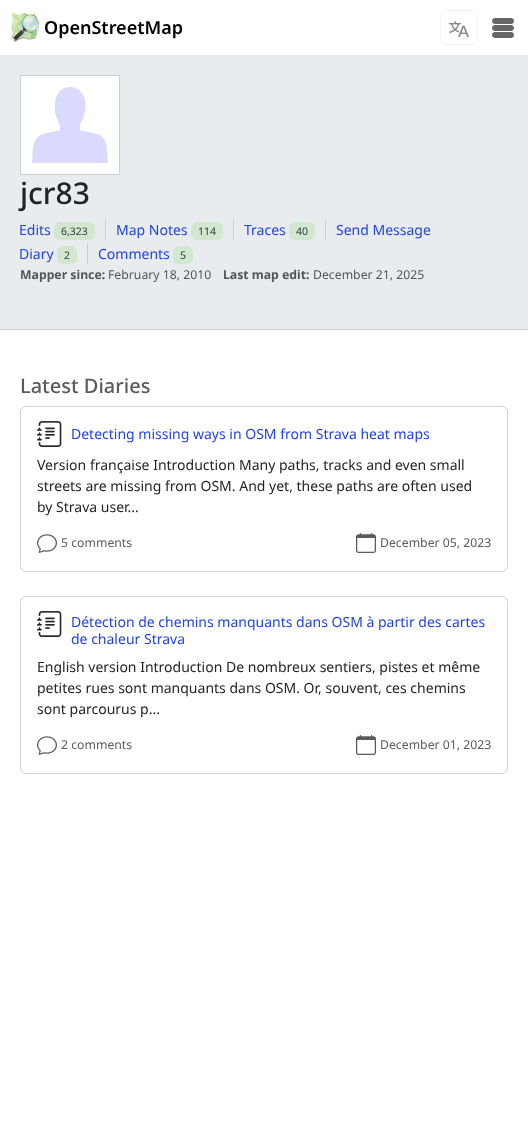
<svg xmlns="http://www.w3.org/2000/svg" width="528" height="1142" viewBox="0 0 528 1142">
  <rect width="100%" height="100%" fill="#ffffff"/>
  <image x="11" y="13" width="28" height="29" href="img1.png"/>
  <text x="44" y="34" font-family="Noto Sans" font-size="18" font-weight="600" fill="#000000">OpenStreetMap</text>
  <rect x="440.5" y="10.5" width="37" height="34" rx="5.5" fill="none" stroke="#f3f3f3"/>
  <image x="449" y="21" width="20" height="16" href="img2.png"/>
  <image x="492" y="18" width="22" height="20" href="img3.png"/>
  <rect x="0" y="55" width="528" height="274" fill="#e9ecef"/>
  <rect x="0" y="329" width="528" height="1" fill="#cfcfcf"/>
  <rect x="20.5" y="75.5" width="99" height="99" fill="#ffffff" stroke="#cfcfcf"/>
  <path d="M70 87C55 87 53 105 56 116L60 126V130L43 134C31 138 33 153 32 163H108C107 153 109 137 97 134L80 130V125L84 116C88 105 85 87 70 87Z" fill="#dadaff"/>
  <text x="20" y="204" font-family="Noto Sans" font-size="30" font-weight="500" fill="#212529">jcr83</text>
  <text x="19" y="235" font-family="Noto Sans" font-size="14" fill="#2244dd">Edits</text>
  <rect x="54" y="222" width="41" height="18" rx="6" fill="#d3e6d0"/>
  <text x="61" y="235" font-family="Noto Sans" font-size="10.5" fill="#343a40">6,323</text>
  <rect x="105" y="219" width="1" height="21" fill="#cccccc"/>
  <text x="116" y="235" font-family="Noto Sans" font-size="14" fill="#2244dd">Map Notes</text>
  <rect x="191" y="222" width="32" height="18" rx="6" fill="#d3e6d0"/>
  <text x="198" y="235" font-family="Noto Sans" font-size="10.5" fill="#343a40">114</text>
  <rect x="233" y="219" width="1" height="21" fill="#cccccc"/>
  <text x="244" y="235" font-family="Noto Sans" font-size="14" fill="#2244dd">Traces</text>
  <rect x="289" y="222" width="26" height="18" rx="6" fill="#d3e6d0"/>
  <text x="296" y="235" font-family="Noto Sans" font-size="10.5" fill="#343a40">40</text>
  <rect x="325" y="219" width="1" height="21" fill="#cccccc"/>
  <text x="336" y="235" font-family="Noto Sans" font-size="14" fill="#2244dd">Send Message</text>
  <text x="19" y="259" font-family="Noto Sans" font-size="14" fill="#2244dd">Diary</text>
  <rect x="57" y="246" width="20" height="18" rx="6" fill="#d3e6d0"/>
  <text x="64" y="259" font-family="Noto Sans" font-size="10.5" fill="#343a40">2</text>
  <rect x="87" y="243" width="1" height="21" fill="#cccccc"/>
  <text x="98" y="259" font-family="Noto Sans" font-size="14" fill="#2244dd">Comments</text>
  <rect x="173" y="246" width="20" height="18" rx="6" fill="#d3e6d0"/>
  <text x="180" y="259" font-family="Noto Sans" font-size="10.5" fill="#343a40">5</text>
  <text x="20" y="279" font-family="Noto Sans" font-size="12.25" font-weight="bold" fill="#53575b">Mapper since:</text>
  <text x="108" y="279" font-family="Noto Sans" font-size="12.25" fill="#53575b">February 18, 2010</text>
  <text x="223" y="279" font-family="Noto Sans" font-size="12.25" font-weight="bold" fill="#53575b">Last map edit:</text>
  <text x="313" y="279" font-family="Noto Sans" font-size="12.25" fill="#53575b">December 21, 2025</text>
  <text x="20" y="393" font-family="Noto Sans" font-size="20" font-weight="500" fill="#595c5f">Latest Diaries</text>
  <rect x="20.5" y="406.5" width="487" height="165" rx="5.5" fill="none" stroke="#d2d2d2"/>
  <image x="37" y="421" width="25" height="26" href="img4.png"/>
  <text x="71" y="439" font-family="Noto Sans" font-size="14" fill="#2244dd">Detecting missing ways in OSM from Strava heat maps</text>
  <text x="37" y="470" font-family="Noto Sans" font-size="14" fill="#212529">Version française Introduction Many paths, tracks and even small</text>
  <text x="37" y="491" font-family="Noto Sans" font-size="14" fill="#212529">streets are missing from OSM. And yet, these paths are often used</text>
  <text x="37" y="512" font-family="Noto Sans" font-size="14" fill="#212529">by Strava user...</text>
  <image x="37" y="534" width="20" height="19" href="img5.png"/>
  <text x="61" y="547" font-family="Noto Sans" font-size="12.25" fill="#595c5f">5 comments</text>
  <image x="356" y="533" width="20" height="20" href="img6.png"/>
  <text x="380" y="547" font-family="Noto Sans" font-size="12.25" fill="#595c5f">December 05, 2023</text>
  <rect x="20.5" y="596.5" width="487" height="177" rx="5.5" fill="none" stroke="#d2d2d2"/>
  <image x="37" y="611" width="25" height="26" href="img4.png"/>
  <text x="71" y="627" font-family="Noto Sans" font-size="14" fill="#2244dd">Détection de chemins manquants dans OSM à partir des cartes</text>
  <text x="71" y="644" font-family="Noto Sans" font-size="14" fill="#2244dd">de chaleur Strava</text>
  <text x="37" y="672" font-family="Noto Sans" font-size="14" fill="#212529">English version Introduction De nombreux sentiers, pistes et même</text>
  <text x="37" y="693" font-family="Noto Sans" font-size="14" fill="#212529">petites rues sont manquants dans OSM. Or, souvent, ces chemins</text>
  <text x="37" y="714" font-family="Noto Sans" font-size="14" fill="#212529">sont parcourus p...</text>
  <image x="37" y="736" width="20" height="19" href="img5.png"/>
  <text x="61" y="749" font-family="Noto Sans" font-size="12.25" fill="#595c5f">2 comments</text>
  <image x="356" y="735" width="20" height="20" href="img6.png"/>
  <text x="380" y="749" font-family="Noto Sans" font-size="12.25" fill="#595c5f">December 01, 2023</text>
</svg>
